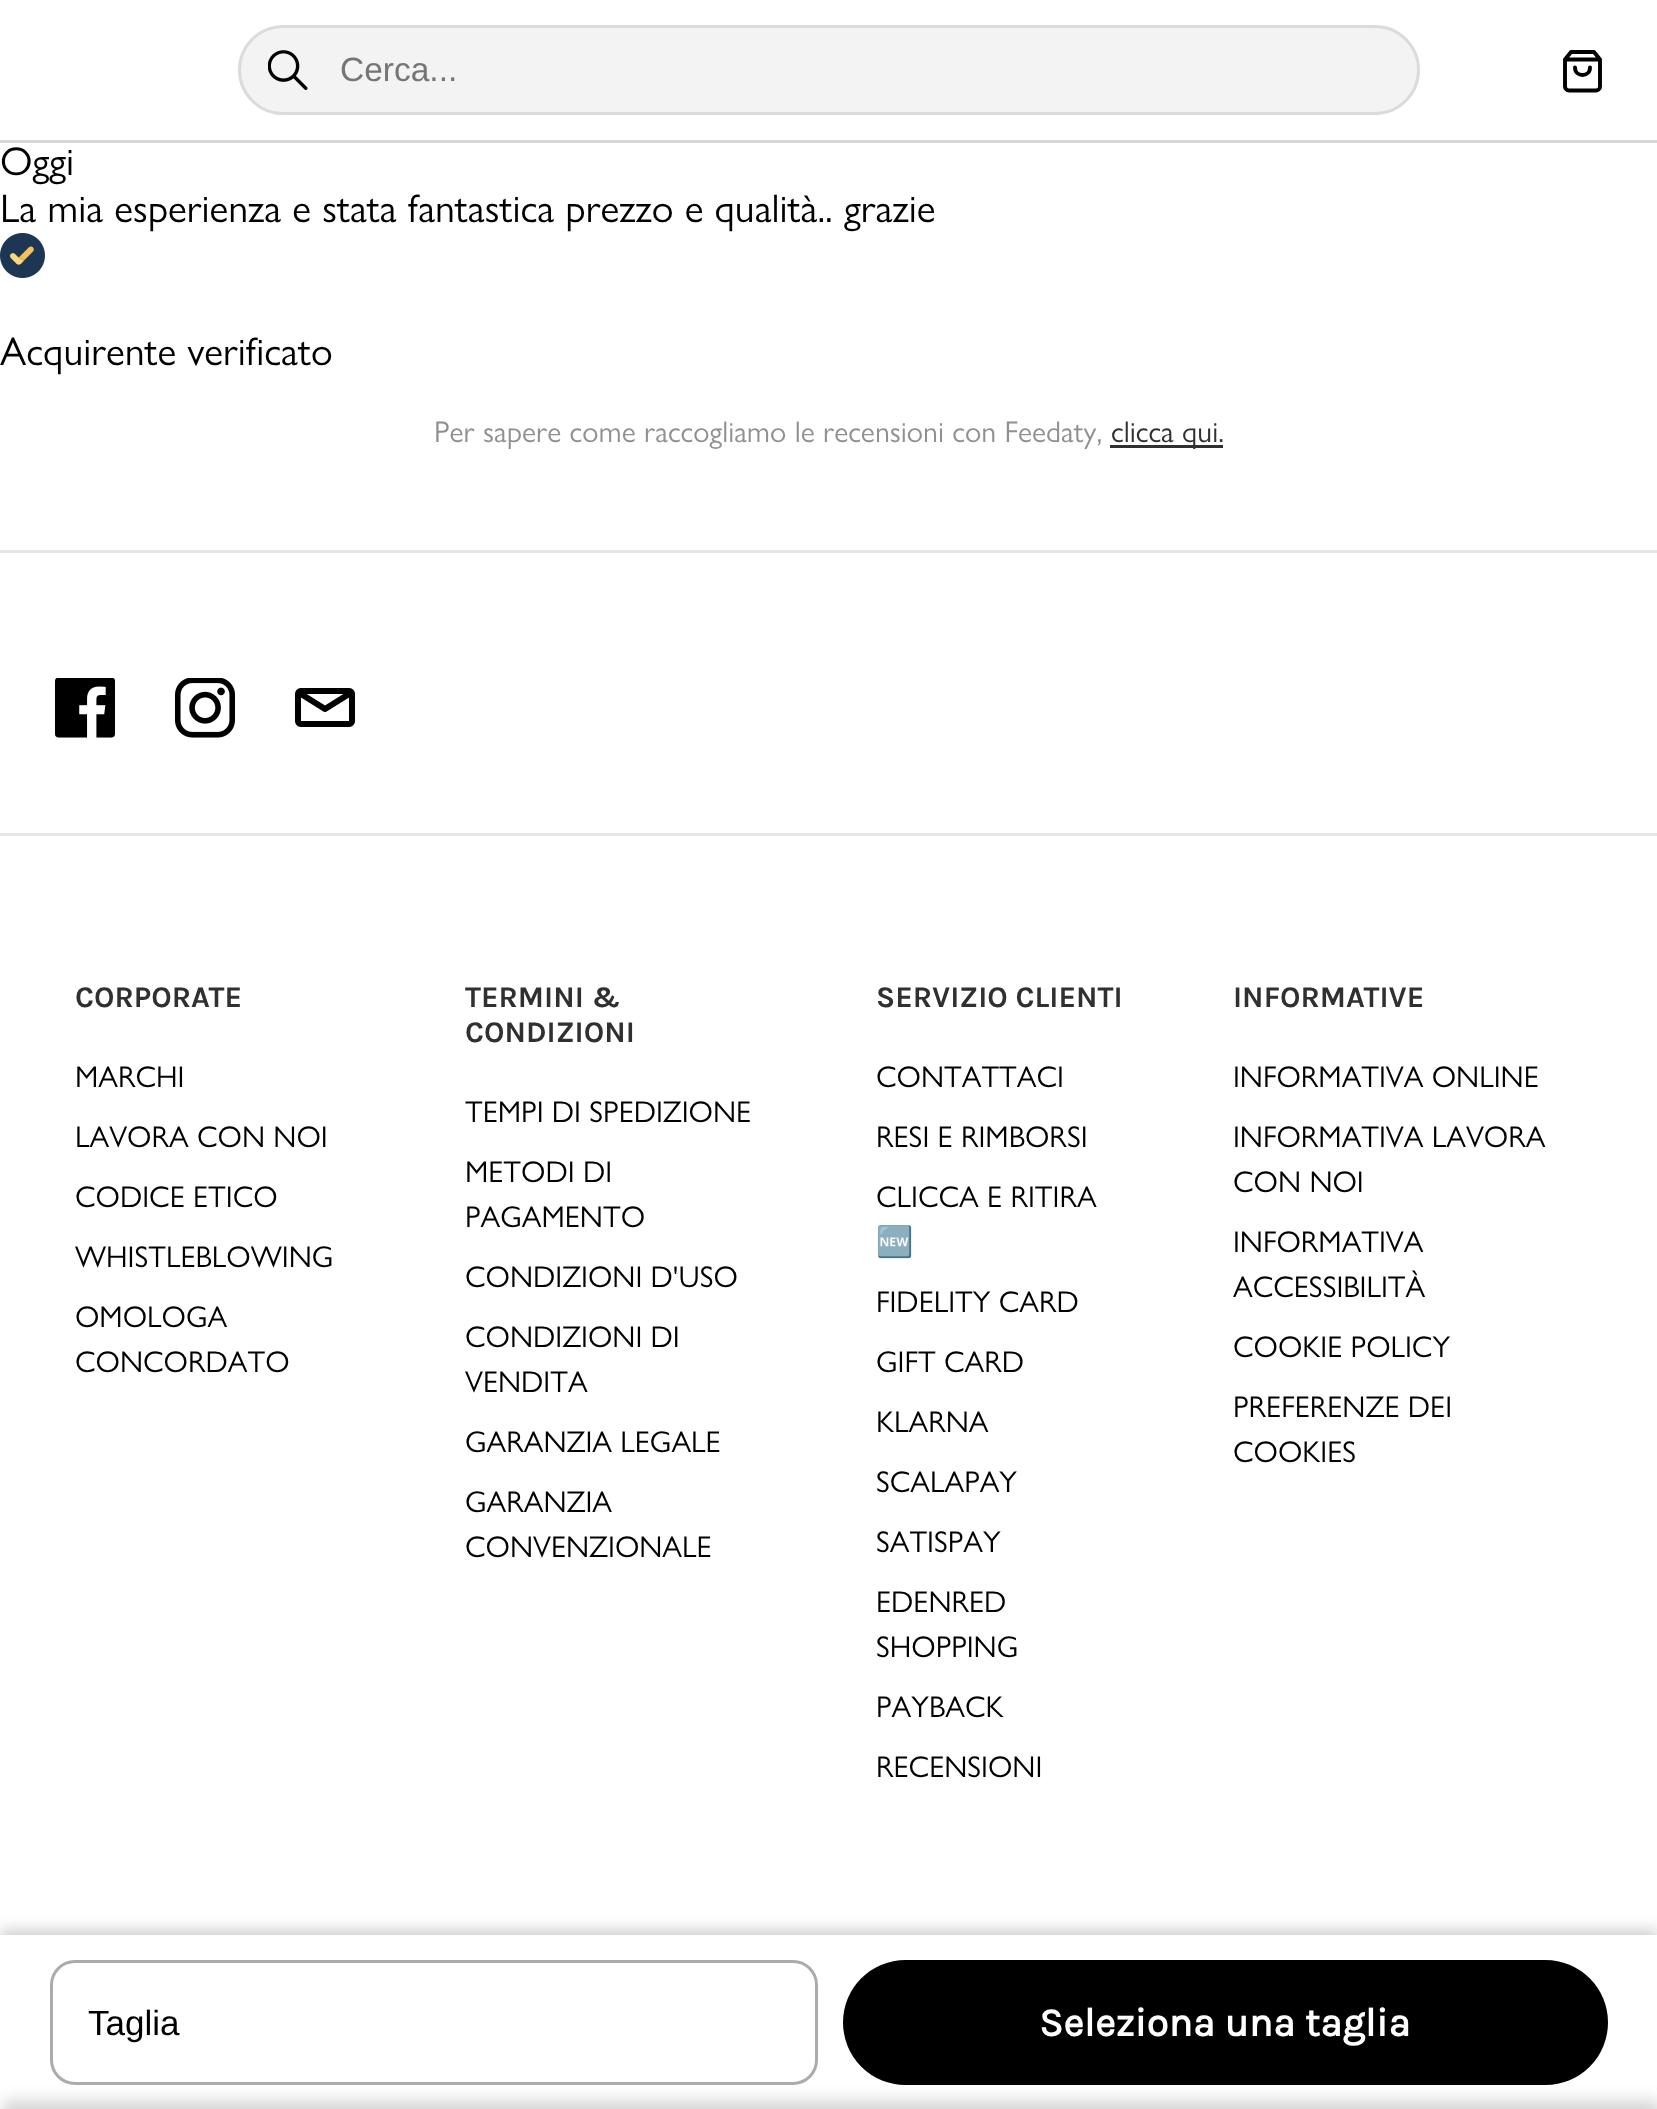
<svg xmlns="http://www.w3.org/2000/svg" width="1657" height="2109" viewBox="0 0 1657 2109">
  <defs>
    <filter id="blur1" x="-50%" y="-200%" width="200%" height="500%"><feGaussianBlur stdDeviation="7.5"/></filter>
  </defs>
  <rect width="100%" height="100%" fill="#ffffff"/>
  <rect x="0" y="140" width="1657" height="3" fill="#d6d6d6"/>
  <rect x="239.5" y="26.5" width="1179" height="87" rx="43.5" fill="#f3f3f3" stroke="#dbdbdb" stroke-width="3"/>
  <image x="268" y="50" width="40" height="40" href="img1.png"/>
  <text x="340" y="81" font-family="Liberation Sans" font-size="33.5" fill="#757575">Cerca...</text>
  <path d="M1571 52L1565 59.5V86.5C1565 89 1567 90.5 1569 90.5H1596C1598 90.5 1600 89 1600 86.5V59.5L1594 52ZM1565 59.5H1600M1590 67.5C1590 77.5 1575 77.5 1575 67.5" fill="none" stroke="#000000" stroke-width="3.9" stroke-linecap="round" stroke-linejoin="round"/>
  <text x="0" y="175" font-family="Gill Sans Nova" font-size="40" fill="#000000">Oggi</text>
  <text x="0" y="222" font-family="Gill Sans Nova" font-size="40" fill="#000000">La mia esperienza e stata fantastica prezzo e qualità.. grazie</text>
  <image x="0" y="233" width="45" height="45" href="img2.png"/>
  <text x="0" y="365" font-family="Gill Sans Nova" font-size="40" fill="#000000">Acquirente verificato</text>
  <text x="434" y="442" font-family="Gill Sans Nova" font-size="30" fill="#909090">Per sapere come raccogliamo le recensioni con Feedaty,</text>
  <rect x="1110" y="445" width="113" height="3" fill="#303030"/>
  <text x="1111" y="442" font-family="Gill Sans Nova" font-size="30" fill="#303030">clicca qui.</text>
  <rect x="0" y="550" width="1657" height="3" fill="#e6e6e6"/>
  <image x="55" y="678" width="60" height="60" href="img3.png"/>
  <image x="175" y="678" width="60" height="60" href="img4.png"/>
  <image x="295" y="688" width="60" height="39" href="img5.png"/>
  <rect x="0" y="833" width="1657" height="3" fill="#e6e6e6"/>
  <text x="75" y="1007" font-family="Karla" font-size="30" font-weight="bold" fill="#303030">CORPORATE</text>
  <text x="75" y="1087" font-family="Gill Sans Nova" font-size="30" fill="#000000">MARCHI</text>
  <text x="75" y="1147" font-family="Gill Sans Nova" font-size="30" fill="#000000">LAVORA CON NOI</text>
  <text x="75" y="1207" font-family="Gill Sans Nova" font-size="30" fill="#000000">CODICE ETICO</text>
  <text x="75" y="1267" font-family="Gill Sans Nova" font-size="30" fill="#000000">WHISTLEBLOWING</text>
  <text x="75" y="1327" font-family="Gill Sans Nova" font-size="30" fill="#000000">OMOLOGA</text>
  <text x="75" y="1372" font-family="Gill Sans Nova" font-size="30" fill="#000000">CONCORDATO</text>
  <text x="465" y="1007" font-family="Karla" font-size="30" font-weight="bold" fill="#303030">TERMINI &amp;</text>
  <text x="465" y="1042" font-family="Karla" font-size="30" font-weight="bold" fill="#303030">CONDIZIONI</text>
  <text x="465" y="1122" font-family="Gill Sans Nova" font-size="30" fill="#000000">TEMPI DI SPEDIZIONE</text>
  <text x="465" y="1182" font-family="Gill Sans Nova" font-size="30" fill="#000000">METODI DI</text>
  <text x="465" y="1227" font-family="Gill Sans Nova" font-size="30" fill="#000000">PAGAMENTO</text>
  <text x="465" y="1287" font-family="Gill Sans Nova" font-size="30" fill="#000000">CONDIZIONI D'USO</text>
  <text x="465" y="1347" font-family="Gill Sans Nova" font-size="30" fill="#000000">CONDIZIONI DI</text>
  <text x="465" y="1392" font-family="Gill Sans Nova" font-size="30" fill="#000000">VENDITA</text>
  <text x="465" y="1452" font-family="Gill Sans Nova" font-size="30" fill="#000000">GARANZIA LEGALE</text>
  <text x="465" y="1512" font-family="Gill Sans Nova" font-size="30" fill="#000000">GARANZIA</text>
  <text x="465" y="1557" font-family="Gill Sans Nova" font-size="30" fill="#000000">CONVENZIONALE</text>
  <text x="876" y="1007" font-family="Karla" font-size="30" font-weight="bold" fill="#303030">SERVIZIO CLIENTI</text>
  <text x="876" y="1087" font-family="Gill Sans Nova" font-size="30" fill="#000000">CONTATTACI</text>
  <text x="876" y="1147" font-family="Gill Sans Nova" font-size="30" fill="#000000">RESI E RIMBORSI</text>
  <text x="876" y="1207" font-family="Gill Sans Nova" font-size="30" fill="#000000">CLICCA E RITIRA</text>
  <text x="876" y="1252" font-family="Noto Color Emoji" font-size="30" fill="#000000">🆕</text>
  <text x="876" y="1312" font-family="Gill Sans Nova" font-size="30" fill="#000000">FIDELITY CARD</text>
  <text x="876" y="1372" font-family="Gill Sans Nova" font-size="30" fill="#000000">GIFT CARD</text>
  <text x="876" y="1432" font-family="Gill Sans Nova" font-size="30" fill="#000000">KLARNA</text>
  <text x="876" y="1492" font-family="Gill Sans Nova" font-size="30" fill="#000000">SCALAPAY</text>
  <text x="876" y="1552" font-family="Gill Sans Nova" font-size="30" fill="#000000">SATISPAY</text>
  <text x="876" y="1612" font-family="Gill Sans Nova" font-size="30" fill="#000000">EDENRED</text>
  <text x="876" y="1657" font-family="Gill Sans Nova" font-size="30" fill="#000000">SHOPPING</text>
  <text x="876" y="1717" font-family="Gill Sans Nova" font-size="30" fill="#000000">PAYBACK</text>
  <text x="876" y="1777" font-family="Gill Sans Nova" font-size="30" fill="#000000">RECENSIONI</text>
  <text x="1233" y="1007" font-family="Karla" font-size="30" font-weight="bold" fill="#303030">INFORMATIVE</text>
  <text x="1233" y="1087" font-family="Gill Sans Nova" font-size="30" fill="#000000">INFORMATIVA ONLINE</text>
  <text x="1233" y="1147" font-family="Gill Sans Nova" font-size="30" fill="#000000">INFORMATIVA LAVORA</text>
  <text x="1233" y="1192" font-family="Gill Sans Nova" font-size="30" fill="#000000">CON NOI</text>
  <text x="1233" y="1252" font-family="Gill Sans Nova" font-size="30" fill="#000000">INFORMATIVA</text>
  <text x="1233" y="1297" font-family="Gill Sans Nova" font-size="30" fill="#000000">ACCESSIBILITÀ</text>
  <text x="1233" y="1357" font-family="Gill Sans Nova" font-size="30" fill="#000000">COOKIE POLICY</text>
  <text x="1233" y="1417" font-family="Gill Sans Nova" font-size="30" fill="#000000">PREFERENZE DEI</text>
  <text x="1233" y="1462" font-family="Gill Sans Nova" font-size="30" fill="#000000">COOKIES</text>
  <rect x="0" y="1930" width="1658" height="175" fill="#000000" fill-opacity="0.2" filter="url(#blur1)"/>
  <rect x="0" y="1935" width="1657" height="174" fill="#ffffff"/>
  <rect x="51.5" y="1961.5" width="765" height="122" rx="23.5" fill="none" stroke="#ababab" stroke-width="3"/>
  <text x="88" y="2035" font-family="Liberation Sans" font-size="35" fill="#000000">Taglia</text>
  <rect x="843" y="1960" width="765" height="125" rx="62.5" fill="#000000"/>
  <text x="1039" y="2036" font-family="'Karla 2'" font-size="40" font-weight="bold" fill="#ffffff">Seleziona una taglia</text>
  <rect x="3" y="2100" width="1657" height="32" fill="#000000" fill-opacity="0.16" filter="url(#blur1)"/>
</svg>
